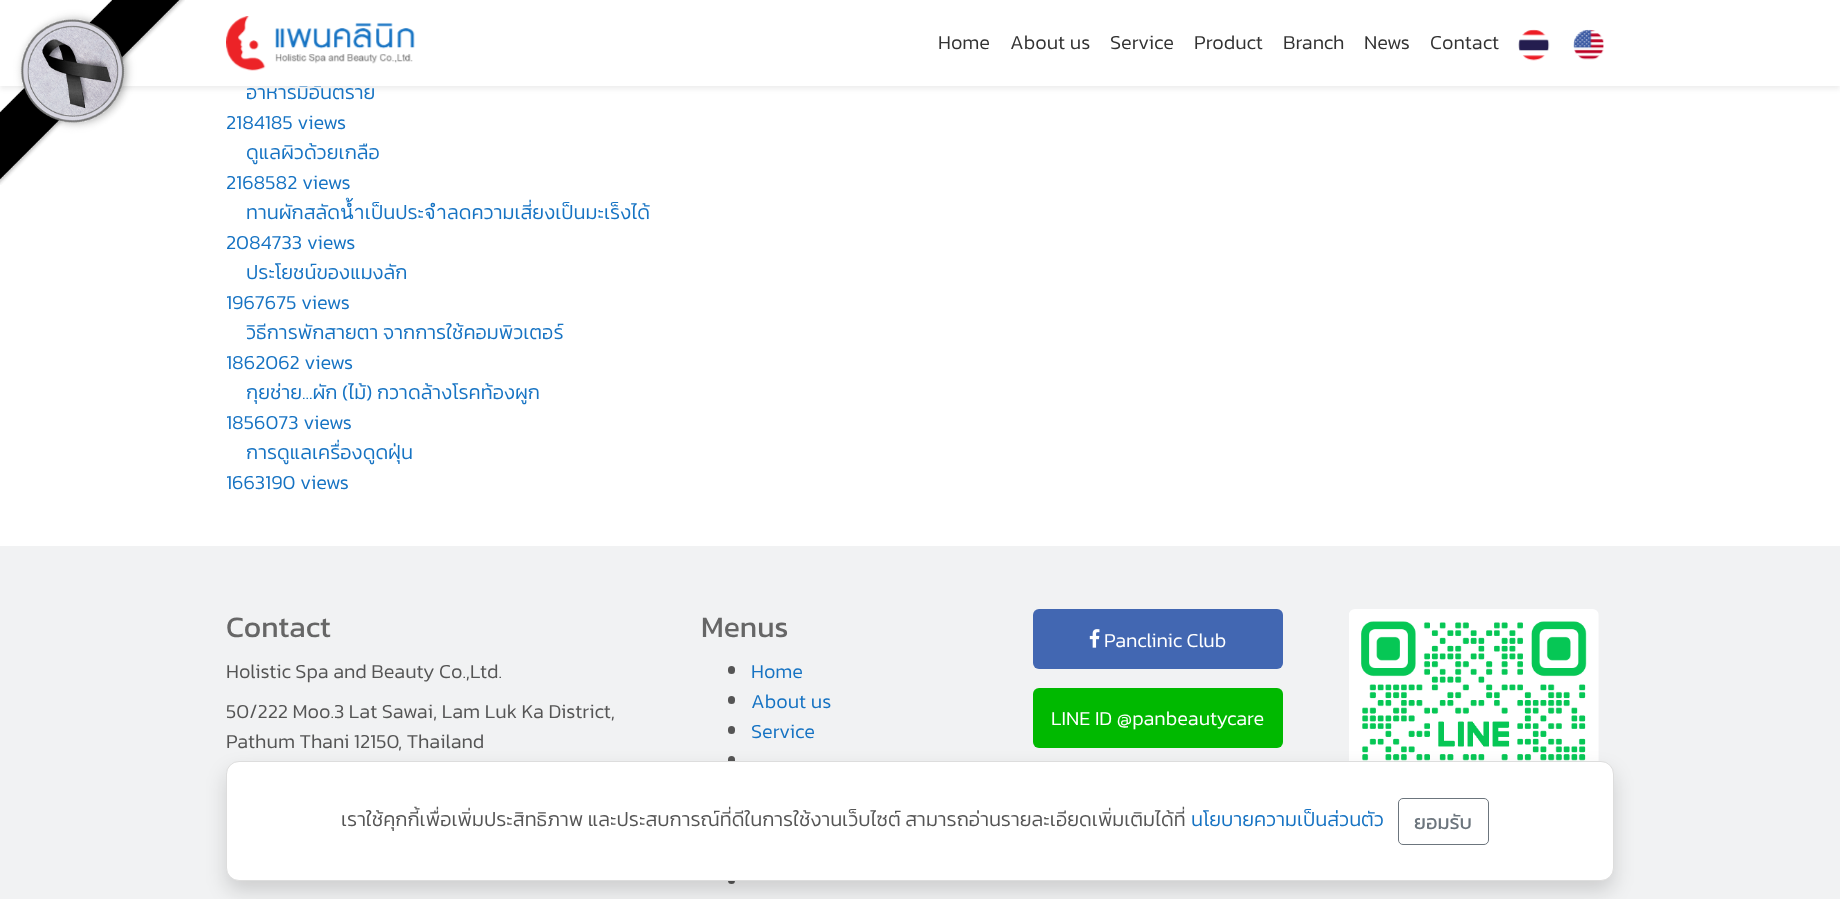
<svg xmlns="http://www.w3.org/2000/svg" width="1840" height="899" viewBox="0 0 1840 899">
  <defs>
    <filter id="blur1" x="-50%" y="-200%" width="200%" height="500%"><feGaussianBlur stdDeviation="2.5"/></filter>
    <filter id="blur2" x="-50%" y="-200%" width="200%" height="500%"><feGaussianBlur stdDeviation="10"/></filter>
  </defs>
  <rect width="100%" height="100%" fill="#ffffff"/>
  <rect x="0" y="3" width="1840" height="86" fill="#000000" fill-opacity="0.07" filter="url(#blur1)"/>
  <text x="246" y="99" font-family="Kanit" font-size="20" font-weight="300" fill="#1673c3">อาหารมีอันตราย</text>
  <rect x="0" y="0" width="1840" height="86" fill="#ffffff"/>
  <image x="0" y="0" width="185" height="185" href="img1.png"/>
  <image x="226" y="16" width="189" height="55" href="img2.png"/>
  <text x="938" y="49" font-family="Kanit" font-size="20" font-weight="300" fill="#333333">Home</text>
  <text x="1010" y="49" font-family="Kanit" font-size="20" font-weight="300" fill="#333333">About us</text>
  <text x="1110" y="49" font-family="Kanit" font-size="20" font-weight="300" fill="#333333">Service</text>
  <text x="1194" y="49" font-family="Kanit" font-size="20" font-weight="300" fill="#333333">Product</text>
  <text x="1283" y="49" font-family="Kanit" font-size="20" font-weight="300" fill="#333333">Branch</text>
  <text x="1364" y="49" font-family="Kanit" font-size="20" font-weight="300" fill="#333333">News</text>
  <text x="1430" y="49" font-family="Kanit" font-size="20" font-weight="300" fill="#333333">Contact</text>
  <image x="1518" y="29" width="32" height="32" href="img3.png"/>
  <image x="1573" y="29" width="31" height="31" href="img4.png"/>
  <text x="226" y="129" font-family="Kanit" font-size="20" font-weight="300" fill="#1673c3">2184185 views</text>
  <text x="246" y="159" font-family="Kanit" font-size="20" font-weight="300" fill="#1673c3">ดูแลผิวด้วยเกลือ</text>
  <text x="226" y="189" font-family="Kanit" font-size="20" font-weight="300" fill="#1673c3">2168582 views</text>
  <text x="246" y="219" font-family="Kanit" font-size="20" font-weight="300" fill="#1673c3">ทานผักสลัดน้ำเป็นประจำลดความเสี่ยงเป็นมะเร็งได้</text>
  <text x="226" y="249" font-family="Kanit" font-size="20" font-weight="300" fill="#1673c3">2084733 views</text>
  <text x="246" y="279" font-family="Kanit" font-size="20" font-weight="300" fill="#1673c3">ประโยชน์ของแมงลัก</text>
  <text x="226" y="309" font-family="Kanit" font-size="20" font-weight="300" fill="#1673c3">1967675 views</text>
  <text x="246" y="339" font-family="Kanit" font-size="20" font-weight="300" fill="#1673c3">วิธีการพักสายตา จากการใช้คอมพิวเตอร์</text>
  <text x="226" y="369" font-family="Kanit" font-size="20" font-weight="300" fill="#1673c3">1862062 views</text>
  <text x="246" y="399" font-family="Kanit" font-size="20" font-weight="300" fill="#1673c3">กุยช่าย...ผัก (ไม้) กวาดล้างโรคท้องผูก</text>
  <text x="226" y="429" font-family="Kanit" font-size="20" font-weight="300" fill="#1673c3">1856073 views</text>
  <text x="246" y="459" font-family="Kanit" font-size="20" font-weight="300" fill="#1673c3">การดูแลเครื่องดูดฝุ่น</text>
  <text x="226" y="489" font-family="Kanit" font-size="20" font-weight="300" fill="#1673c3">1663190 views</text>
  <rect x="0" y="546" width="1840" height="353" fill="#f1f2f3"/>
  <text x="226" y="637" font-family="Kanit" font-size="30" fill="#666666">Contact</text>
  <text x="226" y="678" font-family="Kanit" font-size="20" font-weight="300" fill="#555555">Holistic Spa and Beauty Co.,Ltd.</text>
  <text x="226" y="718" font-family="Kanit" font-size="20" font-weight="300" fill="#555555">50/222 Moo.3 Lat Sawai, Lam Luk Ka District,</text>
  <text x="226" y="748" font-family="Kanit" font-size="20" font-weight="300" fill="#555555">Pathum Thani 12150, Thailand</text>
  <image x="226" y="773" width="1" height="1" href="img5.png"/>
  <text x="701" y="637" font-family="Kanit" font-size="30" fill="#666666">Menus</text>
  <rect x="728" y="666" width="7" height="8" rx="3.5" fill="#555555"/>
  <text x="751" y="678" font-family="Kanit" font-size="20" font-weight="300" fill="#1673c3">Home</text>
  <rect x="728" y="696" width="7" height="8" rx="3.5" fill="#555555"/>
  <text x="751" y="708" font-family="Kanit" font-size="20" font-weight="300" fill="#1673c3">About us</text>
  <rect x="728" y="726" width="7" height="8" rx="3.5" fill="#555555"/>
  <text x="751" y="738" font-family="Kanit" font-size="20" font-weight="300" fill="#1673c3">Service</text>
  <rect x="728" y="756" width="7" height="8" rx="3.5" fill="#555555"/>
  <rect x="728" y="876" width="7" height="8" rx="3.5" fill="#555555"/>
  <rect x="1033" y="609" width="250" height="60" rx="6" fill="#4267b2"/>
  <image x="1089" y="629" width="11" height="19" href="img6.png"/>
  <text x="1104" y="647" font-family="Kanit" font-size="20" font-weight="300" fill="#ffffff">Panclinic Club</text>
  <rect x="1033" y="688" width="250" height="60" rx="6" fill="#00b900"/>
  <text x="1051" y="725" font-family="Kanit" font-size="20" font-weight="300" fill="#ffffff">LINE ID @panbeautycare</text>
  <image x="1349" y="609" width="250" height="152" href="img7.png"/>
  <rect x="226" y="771" width="1388" height="120" rx="13" fill="#000000" fill-opacity="0.15" filter="url(#blur2)"/>
  <rect x="226.5" y="761.5" width="1387" height="119" rx="12.5" fill="#ffffff" stroke="#dddddd"/>
  <text x="341" y="826" font-family="Kanit" font-size="20" font-weight="300" fill="#555555">เราใช้คุกกี้เพื่อเพิ่มประสิทธิภาพ และประสบการณ์ที่ดีในการใช้งานเว็บไซต์ สามารถอ่านรายละเอียดเพิ่มเติมได้ที่</text>
  <text x="1191" y="826" font-family="Kanit" font-size="20" font-weight="300" fill="#1673c3">นโยบายความเป็นส่วนตัว</text>
  <rect x="1398.5" y="798.5" width="90" height="46" rx="4.5" fill="none" stroke="#6c757d"/>
  <text x="1414" y="829" font-family="Kanit" font-size="20" fill="#6c757d">ยอมรับ</text>
</svg>
